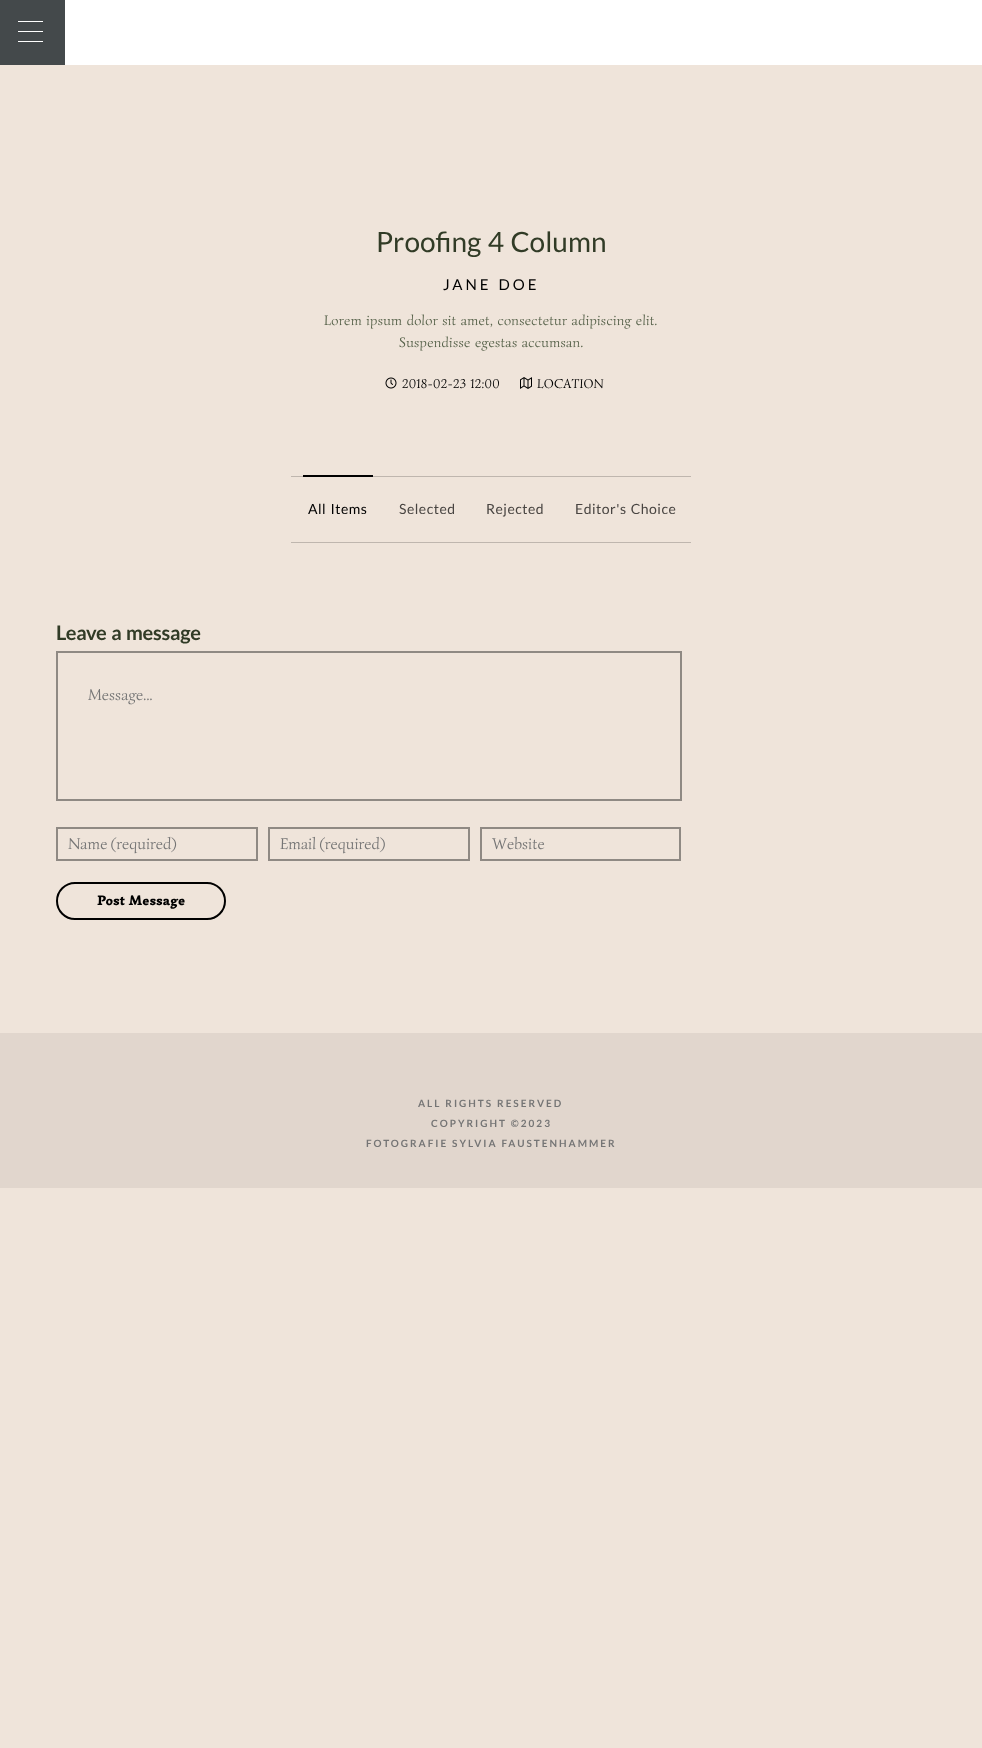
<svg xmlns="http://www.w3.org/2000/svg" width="982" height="1748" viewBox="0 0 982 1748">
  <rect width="100%" height="100%" fill="#efe4da"/>
  <rect x="0" y="0" width="65" height="65" fill="#44494b"/>
  <rect x="18" y="31" width="25" height="1" fill="#ffffff"/>
  <rect x="18" y="21" width="25" height="1" fill="#ffffff"/>
  <rect x="18" y="41" width="25" height="1" fill="#ffffff"/>
  <rect x="65" y="0" width="917" height="65" fill="#ffffff"/>
  <text x="376" y="252" word-spacing="1" font-family="Lato" font-size="28" fill="#313b26">Proofing 4 Column</text>
  <text x="443" y="290" word-spacing="1" font-family="Lato" font-size="15" letter-spacing="3" fill="#000000">JANE DOE</text>
  <text x="324" y="325" word-spacing="1" font-family="Simonetta" font-size="14" letter-spacing="0.25" fill="#57624a">Lorem ipsum dolor sit amet, consectetur adipiscing elit.</text>
  <text x="399" y="347" word-spacing="1" font-family="Simonetta" font-size="14" letter-spacing="0.25" fill="#57624a">Suspendisse egestas accumsan.</text>
  <image x="385" y="377" width="12" height="12" href="img1.png"/>
  <text x="402" y="388" word-spacing="1" font-family="Simonetta" font-size="13" letter-spacing="0.25" fill="#000000">2018-02-23 12:00</text>
  <image x="520" y="377" width="12" height="12" href="img2.png"/>
  <text x="537" y="388" font-family="Simonetta" font-size="13" letter-spacing="0.25" fill="#000000">LOCATION</text>
  <rect x="291" y="476" width="400" height="1" fill="#bfb6ae"/>
  <rect x="291" y="542" width="400" height="1" fill="#bfb6ae"/>
  <rect x="303" y="475" width="70" height="2" fill="#000000"/>
  <text x="308" y="514" word-spacing="1" font-family="Lato" font-size="14" letter-spacing="0.5" fill="#000000">All Items</text>
  <text x="399" y="514" font-family="Lato" font-size="14" letter-spacing="0.5" fill="#484441">Selected</text>
  <text x="486" y="514" font-family="Lato" font-size="14" letter-spacing="0.5" fill="#484441">Rejected</text>
  <text x="575" y="514" word-spacing="1" font-family="Lato" font-size="14" letter-spacing="0.5" fill="#484441">Editor's Choice</text>
  <text x="56" y="640" word-spacing="1" font-family="Lato" font-size="20" font-weight="bold" letter-spacing="-0.25" fill="#313b26">Leave a message</text>
  <rect x="57" y="652" width="624" height="148" fill="none" stroke="#8f8983" stroke-width="2"/>
  <text x="88" y="700" font-family="Simonetta" font-size="16" fill="#757575">Message...</text>
  <rect x="57" y="828" width="200" height="32" fill="none" stroke="#8f8983" stroke-width="2"/>
  <text x="68" y="849" font-family="Simonetta" font-size="16" fill="#757575">Name (required)</text>
  <rect x="269" y="828" width="200" height="32" fill="none" stroke="#8f8983" stroke-width="2"/>
  <text x="280" y="849" font-family="Simonetta" font-size="16" fill="#757575">Email (required)</text>
  <rect x="481" y="828" width="199" height="32" fill="none" stroke="#8f8983" stroke-width="2"/>
  <text x="492" y="849" font-family="Simonetta" font-size="16" fill="#757575">Website</text>
  <rect x="57" y="883" width="168" height="36" rx="18" fill="none" stroke="#000000" stroke-width="2"/>
  <text x="97" y="905" font-family="Simonetta" font-size="14" font-weight="900" letter-spacing="0.25" fill="#000000">Post Message</text>
  <rect x="0" y="1033" width="982" height="155" fill="#e1d6cd"/>
  <text x="418" y="1107" font-family="Lato" font-size="10" font-weight="bold" letter-spacing="2" fill="#757575">ALL RIGHTS RESERVED</text>
  <text x="431" y="1127" font-family="Lato" font-size="10" font-weight="bold" letter-spacing="2" fill="#757575">COPYRIGHT ©2023</text>
  <text x="366" y="1147" font-family="Lato" font-size="10" font-weight="bold" letter-spacing="2" fill="#757575">FOTOGRAFIE SYLVIA FAUSTENHAMMER</text>
</svg>
